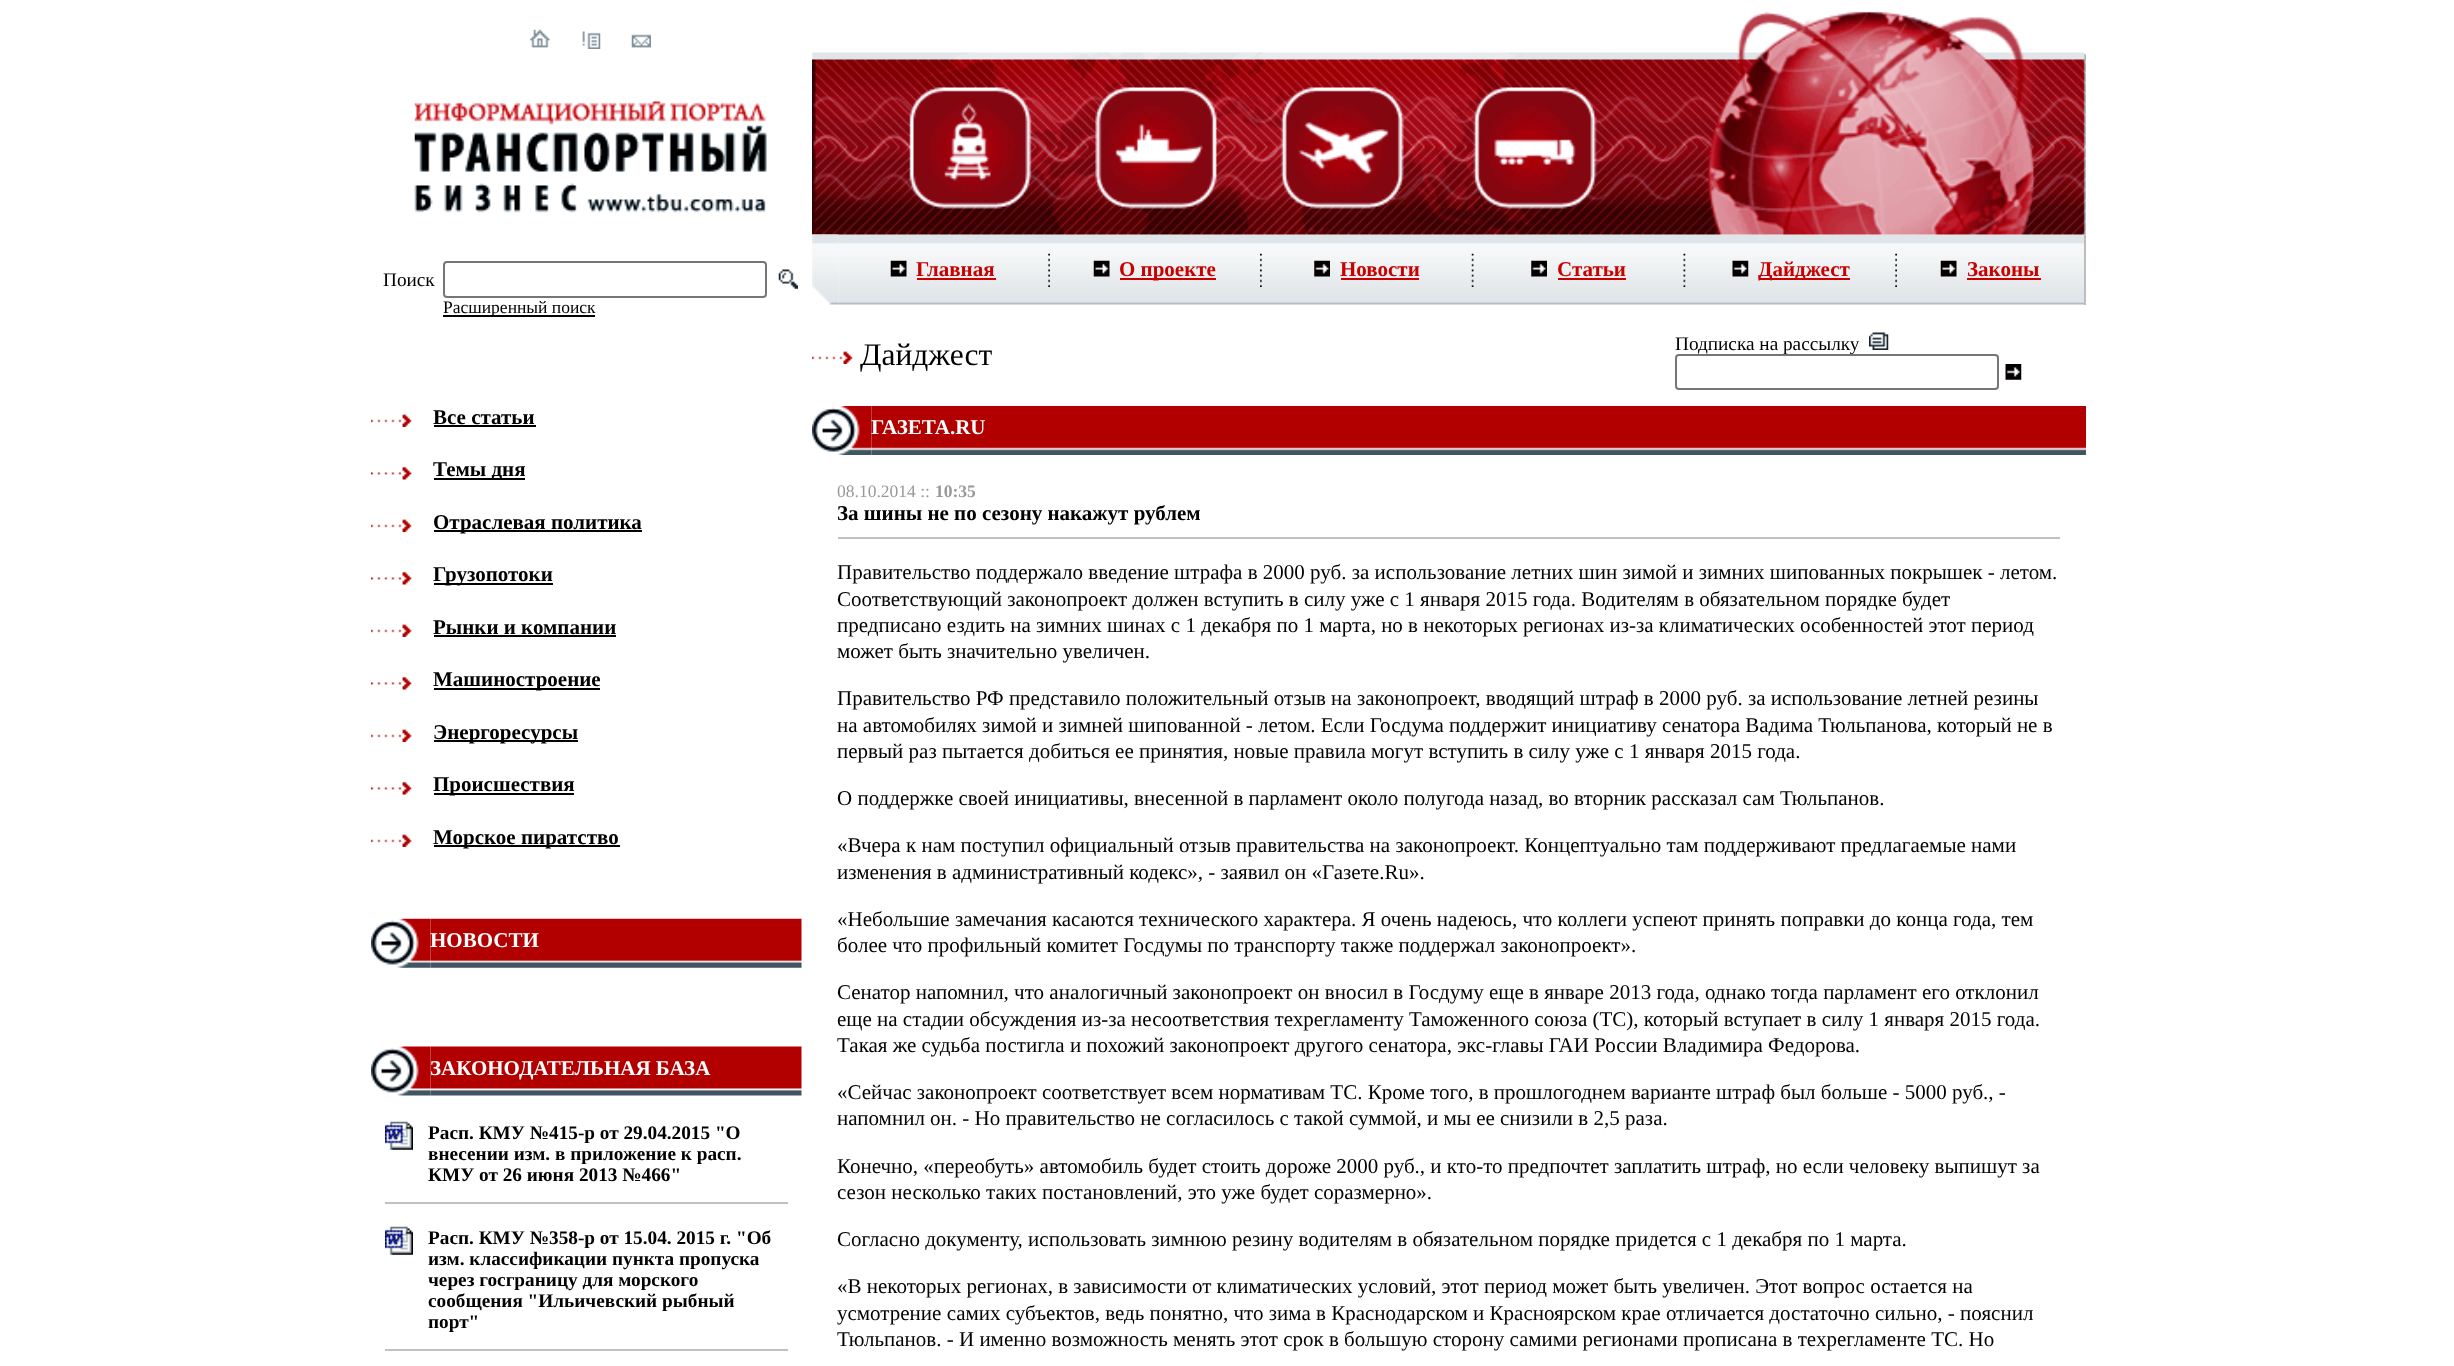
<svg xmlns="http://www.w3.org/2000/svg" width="2454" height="1366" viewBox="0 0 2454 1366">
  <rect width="100%" height="100%" fill="#ffffff"/>
  <image x="838" y="234" width="1247" height="71" href="img3.png"/>
  <image x="812" y="11" width="1274" height="224" href="img1.png"/>
  <image x="812" y="234" width="27" height="71" href="img2.png"/>
  <image x="890" y="260" width="17" height="17" href="img4.png"/>
  <text x="916" y="276" font-family="Liberation Serif" font-size="21" font-weight="bold" fill="#c80000">Главная</text>
  <rect x="917" y="278" width="79" height="2" fill="#c80000"/>
  <image x="1048" y="253" width="2" height="34" href="img5.png"/>
  <image x="1093" y="260" width="17" height="17" href="img4.png"/>
  <rect x="1120" y="278" width="96" height="2" fill="#c80000"/>
  <text x="1119" y="276" font-family="Liberation Serif" font-size="21" font-weight="bold" fill="#c80000">О проекте</text>
  <image x="1260" y="253" width="2" height="34" href="img6.png"/>
  <image x="1314" y="260" width="16" height="17" href="img7.png"/>
  <text x="1340" y="276" font-family="Liberation Serif" font-size="21" font-weight="bold" fill="#c80000">Новости</text>
  <rect x="1341" y="278" width="78" height="2" fill="#c80000"/>
  <image x="1471" y="253" width="3" height="34" href="img8.png"/>
  <image x="1531" y="260" width="16" height="17" href="img9.png"/>
  <text x="1557" y="276" font-family="Liberation Serif" font-size="21" font-weight="bold" fill="#c80000">Статьи</text>
  <rect x="1558" y="278" width="68" height="2" fill="#c80000"/>
  <image x="1683" y="253" width="3" height="34" href="img10.png"/>
  <image x="1732" y="260" width="17" height="17" href="img11.png"/>
  <rect x="1759" y="278" width="91" height="2" fill="#c80000"/>
  <text x="1758" y="276" font-family="Liberation Serif" font-size="21" font-weight="bold" fill="#c80000">Дайджест</text>
  <image x="1895" y="253" width="2" height="34" href="img5.png"/>
  <image x="1940" y="260" width="17" height="17" href="img4.png"/>
  <text x="1967" y="276" font-family="Liberation Serif" font-size="21" font-weight="bold" fill="#c80000">Законы</text>
  <rect x="1967" y="278" width="74" height="2" fill="#c80000"/>
  <rect x="2084" y="235" width="2" height="70" fill="#bdbdbd"/>
  <image x="530" y="29" width="20" height="19" href="img12.png"/>
  <image x="582" y="31" width="19" height="18" href="img13.png"/>
  <image x="631" y="34" width="20" height="14" href="img14.png"/>
  <image x="414" y="101" width="353" height="112" href="img15.png"/>
  <text x="383" y="286" font-family="Liberation Serif" font-size="19.25" fill="#000000">Поиск</text>
  <rect x="444" y="262" width="322" height="35" rx="3" fill="none" stroke="#767676" stroke-width="2"/>
  <image x="778" y="269" width="20" height="20" href="img16.png"/>
  <rect x="443" y="315" width="152" height="2" fill="#000000"/>
  <text x="443" y="313" font-family="Liberation Serif" font-size="17.5" fill="#000000">Расширенный поиск</text>
  <image x="371" y="414" width="41" height="13" href="img17.png"/>
  <text x="433" y="424" font-family="Liberation Serif" font-size="21" font-weight="bold" fill="#000000">Все статьи</text>
  <rect x="434" y="425" width="102" height="2" fill="#000000"/>
  <image x="371" y="466" width="41" height="14" href="img18.png"/>
  <rect x="434" y="478" width="91" height="2" fill="#000000"/>
  <text x="433" y="476" font-family="Liberation Serif" font-size="21" font-weight="bold" fill="#000000">Темы дня</text>
  <image x="371" y="519" width="41" height="13" href="img17.png"/>
  <rect x="434" y="530" width="208" height="2" fill="#000000"/>
  <text x="433" y="529" font-family="Liberation Serif" font-size="21" font-weight="bold" fill="#000000">Отраслевая политика</text>
  <image x="371" y="571" width="41" height="14" href="img18.png"/>
  <rect x="434" y="583" width="119" height="2" fill="#000000"/>
  <text x="433" y="581" font-family="Liberation Serif" font-size="21" font-weight="bold" fill="#000000">Грузопотоки</text>
  <image x="371" y="624" width="41" height="13" href="img17.png"/>
  <text x="433" y="634" font-family="Liberation Serif" font-size="21" font-weight="bold" fill="#000000">Рынки и компании</text>
  <rect x="434" y="635" width="182" height="2" fill="#000000"/>
  <image x="371" y="676" width="41" height="14" href="img18.png"/>
  <rect x="434" y="688" width="166" height="2" fill="#000000"/>
  <text x="433" y="686" font-family="Liberation Serif" font-size="21" font-weight="bold" fill="#000000">Машиностроение</text>
  <image x="371" y="729" width="41" height="13" href="img17.png"/>
  <rect x="434" y="740" width="144" height="2" fill="#000000"/>
  <text x="433" y="739" font-family="Liberation Serif" font-size="21" font-weight="bold" fill="#000000">Энергоресурсы</text>
  <image x="371" y="781" width="41" height="14" href="img18.png"/>
  <rect x="434" y="793" width="140" height="2" fill="#000000"/>
  <text x="433" y="791" font-family="Liberation Serif" font-size="21" font-weight="bold" fill="#000000">Происшествия</text>
  <image x="371" y="834" width="41" height="13" href="img17.png"/>
  <rect x="434" y="845" width="186" height="2" fill="#000000"/>
  <text x="433" y="844" font-family="Liberation Serif" font-size="21" font-weight="bold" fill="#000000">Морское пиратство</text>
  <image x="430" y="918" width="372" height="50" href="img20.png"/>
  <image x="371" y="918" width="60" height="50" href="img19.png"/>
  <text x="430" y="947" font-family="Liberation Serif" font-size="21" font-weight="bold" fill="#ffffff">НОВОСТИ</text>
  <image x="430" y="1046" width="372" height="50" href="img22.png"/>
  <image x="371" y="1046" width="60" height="50" href="img21.png"/>
  <text x="430" y="1075" font-family="Liberation Serif" font-size="21" font-weight="bold" fill="#ffffff">ЗАКОНОДАТЕЛЬНАЯ БАЗА</text>
  <image x="385" y="1121" width="28" height="29" href="img23.png"/>
  <text x="428" y="1139" font-family="Liberation Serif" font-size="19.25" font-weight="bold" fill="#000000">Расп. КМУ №415-р от 29.04.2015 "О</text>
  <text x="428" y="1160" font-family="Liberation Serif" font-size="19.25" font-weight="bold" fill="#000000">внесении изм. в приложение к расп.</text>
  <text x="428" y="1181" font-family="Liberation Serif" font-size="19.25" font-weight="bold" fill="#000000">КМУ от 26 июня 2013 №466"</text>
  <rect x="385" y="1202" width="403" height="2" fill="#c1c1c1"/>
  <image x="385" y="1226" width="28" height="29" href="img23.png"/>
  <text x="428" y="1244" font-family="Liberation Serif" font-size="19.25" font-weight="bold" fill="#000000">Расп. КМУ №358-р от 15.04. 2015 г. "Об</text>
  <text x="428" y="1265" font-family="Liberation Serif" font-size="19.25" font-weight="bold" fill="#000000">изм. классификации пункта пропуска</text>
  <text x="428" y="1286" font-family="Liberation Serif" font-size="19.25" font-weight="bold" fill="#000000">через госграницу для морского</text>
  <text x="428" y="1307" font-family="Liberation Serif" font-size="19.25" font-weight="bold" fill="#000000">сообщения "Ильичевский рыбный</text>
  <text x="428" y="1328" font-family="Liberation Serif" font-size="19.25" font-weight="bold" fill="#000000">порт"</text>
  <rect x="385" y="1349" width="403" height="2" fill="#c1c1c1"/>
  <image x="812" y="351" width="41" height="13" href="img17.png"/>
  <text x="860" y="365" font-family="Liberation Serif" font-size="31.5" fill="#000000">Дайджест</text>
  <text x="1675" y="350" font-family="Liberation Serif" font-size="19.25" fill="#000000">Подписка на рассылку</text>
  <image x="1869" y="332" width="20" height="18" href="img24.png"/>
  <rect x="1676" y="355" width="322" height="34" rx="3" fill="#ffffff" stroke="#767676" stroke-width="2"/>
  <image x="2005" y="364" width="17" height="16" href="img25.png"/>
  <image x="871" y="406" width="1215" height="49" href="img27.png"/>
  <image x="812" y="406" width="60" height="49" href="img26.png"/>
  <text x="871" y="434" font-family="Liberation Serif" font-size="21" font-weight="bold" fill="#ffffff">ГАЗЕТА.RU</text>
  <text x="837" y="497" font-family="Liberation Serif" font-size="17.5" fill="#999999">08.10.2014 ::</text>
  <text x="935" y="497" font-family="Liberation Serif" font-size="17.5" font-weight="bold" fill="#999999">10:35</text>
  <text x="837" y="520" font-family="Liberation Serif" font-size="21" font-weight="bold" fill="#000000">За шины не по сезону накажут рублем</text>
  <rect x="838" y="537" width="1222" height="2" fill="#c1c1c1"/>
  <text x="837" y="579" font-family="Liberation Serif" font-size="21" fill="#000000">Правительство поддержало введение штрафа в 2000 руб. за использование летних шин зимой и зимних шипованных покрышек - летом.</text>
  <text x="837" y="606" font-family="Liberation Serif" font-size="21" fill="#000000">Соответствующий законопроект должен вступить в силу уже с 1 января 2015 года. Водителям в обязательном порядке будет</text>
  <text x="837" y="632" font-family="Liberation Serif" font-size="21" fill="#000000">предписано ездить на зимних шинах с 1 декабря по 1 марта, но в некоторых регионах из-за климатических особенностей этот период</text>
  <text x="837" y="658" font-family="Liberation Serif" font-size="21" fill="#000000">может быть значительно увеличен.</text>
  <text x="837" y="705" font-family="Liberation Serif" font-size="21" fill="#000000">Правительство РФ представило положительный отзыв на законопроект, вводящий штраф в 2000 руб. за использование летней резины</text>
  <text x="837" y="732" font-family="Liberation Serif" font-size="21" fill="#000000">на автомобилях зимой и зимней шипованной - летом. Если Госдума поддержит инициативу сенатора Вадима Тюльпанова, который не в</text>
  <text x="837" y="758" font-family="Liberation Serif" font-size="21" fill="#000000">первый раз пытается добиться ее принятия, новые правила могут вступить в силу уже с 1 января 2015 года.</text>
  <text x="837" y="805" font-family="Liberation Serif" font-size="21" fill="#000000">О поддержке своей инициативы, внесенной в парламент около полугода назад, во вторник рассказал сам Тюльпанов.</text>
  <text x="837" y="852" font-family="Liberation Serif" font-size="21" fill="#000000">«Вчера к нам поступил официальный отзыв правительства на законопроект. Концептуально там поддерживают предлагаемые нами</text>
  <text x="837" y="879" font-family="Liberation Serif" font-size="21" fill="#000000">изменения в административный кодекс», - заявил он «Газете.Ru».</text>
  <text x="837" y="926" font-family="Liberation Serif" font-size="21" fill="#000000">«Небольшие замечания касаются технического характера. Я очень надеюсь, что коллеги успеют принять поправки до конца года, тем</text>
  <text x="837" y="952" font-family="Liberation Serif" font-size="21" fill="#000000">более что профильный комитет Госдумы по транспорту также поддержал законопроект».</text>
  <text x="837" y="999" font-family="Liberation Serif" font-size="21" fill="#000000">Сенатор напомнил, что аналогичный законопроект он вносил в Госдуму еще в январе 2013 года, однако тогда парламент его отклонил</text>
  <text x="837" y="1026" font-family="Liberation Serif" font-size="21" fill="#000000">еще на стадии обсуждения из-за несоответствия техрегламенту Таможенного союза (ТС), который вступает в силу 1 января 2015 года.</text>
  <text x="837" y="1052" font-family="Liberation Serif" font-size="21" fill="#000000">Такая же судьба постигла и похожий законопроект другого сенатора, экс-главы ГАИ России Владимира Федорова.</text>
  <text x="837" y="1099" font-family="Liberation Serif" font-size="21" fill="#000000">«Сейчас законопроект соответствует всем нормативам ТС. Кроме того, в прошлогоднем варианте штраф был больше - 5000 руб., -</text>
  <text x="837" y="1125" font-family="Liberation Serif" font-size="21" fill="#000000">напомнил он. - Но правительство не согласилось с такой суммой, и мы ее снизили в 2,5 раза.</text>
  <text x="837" y="1173" font-family="Liberation Serif" font-size="21" fill="#000000">Конечно, «переобуть» автомобиль будет стоить дороже 2000 руб., и кто-то предпочтет заплатить штраф, но если человеку выпишут за</text>
  <text x="837" y="1199" font-family="Liberation Serif" font-size="21" fill="#000000">сезон несколько таких постановлений, это уже будет соразмерно».</text>
  <text x="837" y="1246" font-family="Liberation Serif" font-size="21" fill="#000000">Согласно документу, использовать зимнюю резину водителям в обязательном порядке придется с 1 декабря по 1 марта.</text>
  <text x="837" y="1293" font-family="Liberation Serif" font-size="21" fill="#000000">«В некоторых регионах, в зависимости от климатических условий, этот период может быть увеличен. Этот вопрос остается на</text>
  <text x="837" y="1320" font-family="Liberation Serif" font-size="21" fill="#000000">усмотрение самих субъектов, ведь понятно, что зима в Краснодарском и Красноярском крае отличается достаточно сильно, - пояснил</text>
  <text x="837" y="1346" font-family="Liberation Serif" font-size="21" fill="#000000">Тюльпанов. - И именно возможность менять этот срок в большую сторону самими регионами прописана в техрегламенте ТС. Но</text>
</svg>
